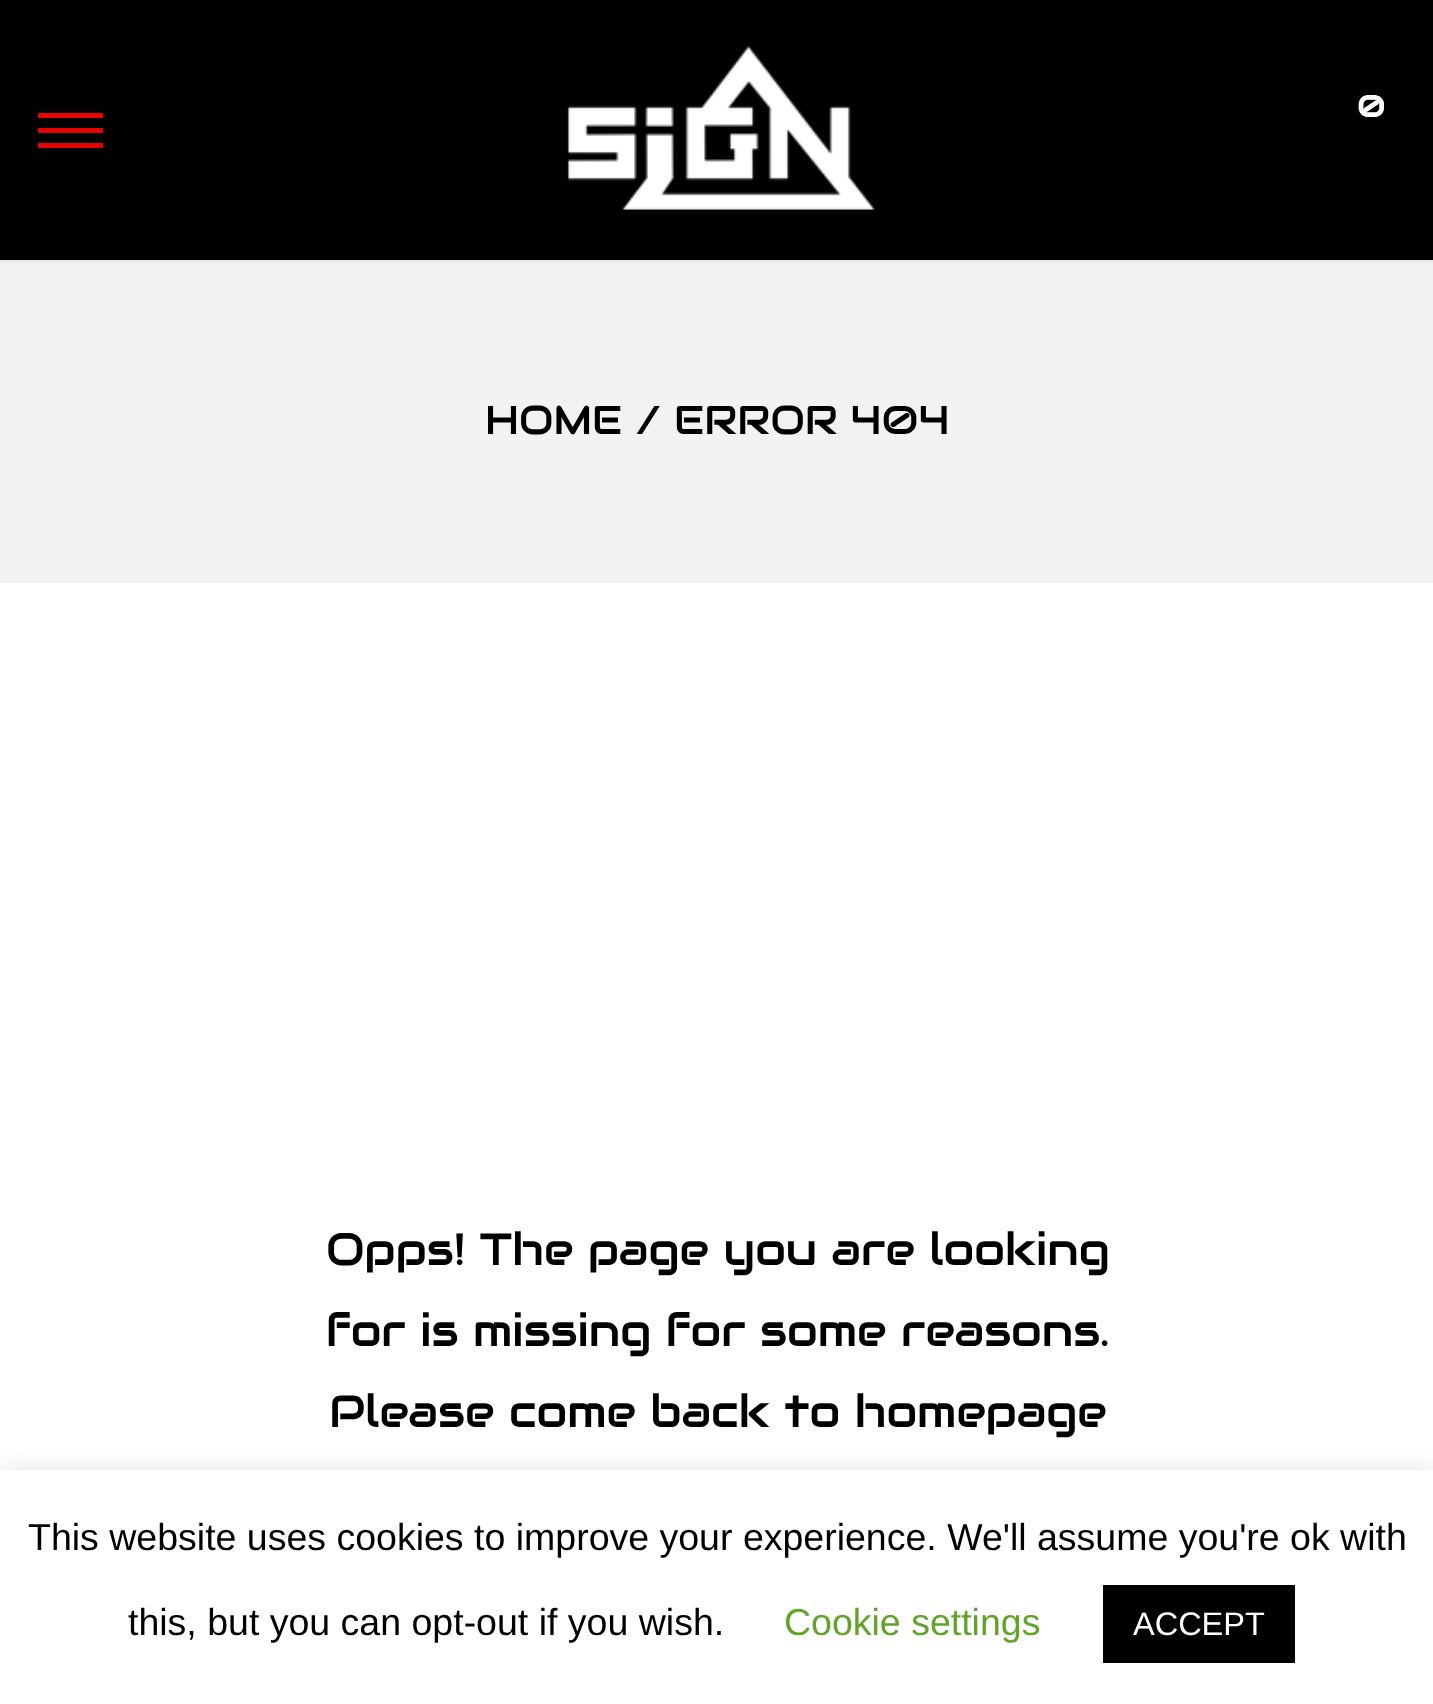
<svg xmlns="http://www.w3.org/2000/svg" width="1433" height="1704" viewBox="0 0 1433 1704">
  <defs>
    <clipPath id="clip1"><rect x="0" y="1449" width="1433" height="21"/></clipPath>
    <filter id="blur1" x="-50%" y="-200%" width="200%" height="500%"><feGaussianBlur stdDeviation="12.5"/></filter>
  </defs>
  <rect width="100%" height="100%" fill="#ffffff"/>
  <rect x="0" y="0" width="1433" height="260" fill="#000000"/>
  <rect x="0" y="260" width="1433" height="3" fill="#eaeaea"/>
  <image x="567" y="46" width="308" height="164" href="img1.png"/>
  <text x="1357" y="117" font-family="Audiowide" font-size="30" font-weight="bold" fill="#ffffff">0</text>
  <rect x="38" y="128" width="65" height="5" fill="#e60000"/>
  <rect x="38" y="113" width="65" height="5" fill="#e60000"/>
  <rect x="38" y="143" width="65" height="5" fill="#e60000"/>
  <rect x="0" y="263" width="1433" height="320" fill="#f2f2f2"/>
  <text x="485" y="434" font-family="Audiowide" font-size="40" fill="#000000">HOME</text>
  <text x="635" y="434" font-family="Audiowide" font-size="40" fill="#000000">/</text>
  <text x="674" y="434" font-family="Audiowide" font-size="40" fill="#000000">ERROR 404</text>
  <text x="326" y="1265" font-family="Audiowide" font-size="45" fill="#000000">Opps! The page you are looking</text>
  <text x="326" y="1346" font-family="Audiowide" font-size="45" fill="#000000">for is missing for some reasons.</text>
  <text x="329" y="1427" font-family="Audiowide" font-size="45" fill="#000000">Please come back to homepage</text>
  <g clip-path="url(#clip1)">
    <rect x="0" y="1468" width="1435" height="235" fill="#acabab" fill-opacity="0.3" filter="url(#blur1)"/>
  </g>
  <text x="28" y="1550" font-family="Liberation Sans" font-size="37.5" fill="#000000">This website uses cookies to improve your experience. We'll assume you're ok with</text>
  <text x="128" y="1635" font-family="Liberation Sans" font-size="37.5" fill="#000000">this, but you can opt-out if you wish.</text>
  <text x="784" y="1635" font-family="Liberation Sans" font-size="37.5" fill="#62a329">Cookie settings</text>
  <rect x="1103" y="1585" width="192" height="78" fill="#000000"/>
  <text x="1133" y="1635" font-family="Liberation Sans" font-size="32.5" fill="#ffffff">ACCEPT</text>
</svg>
